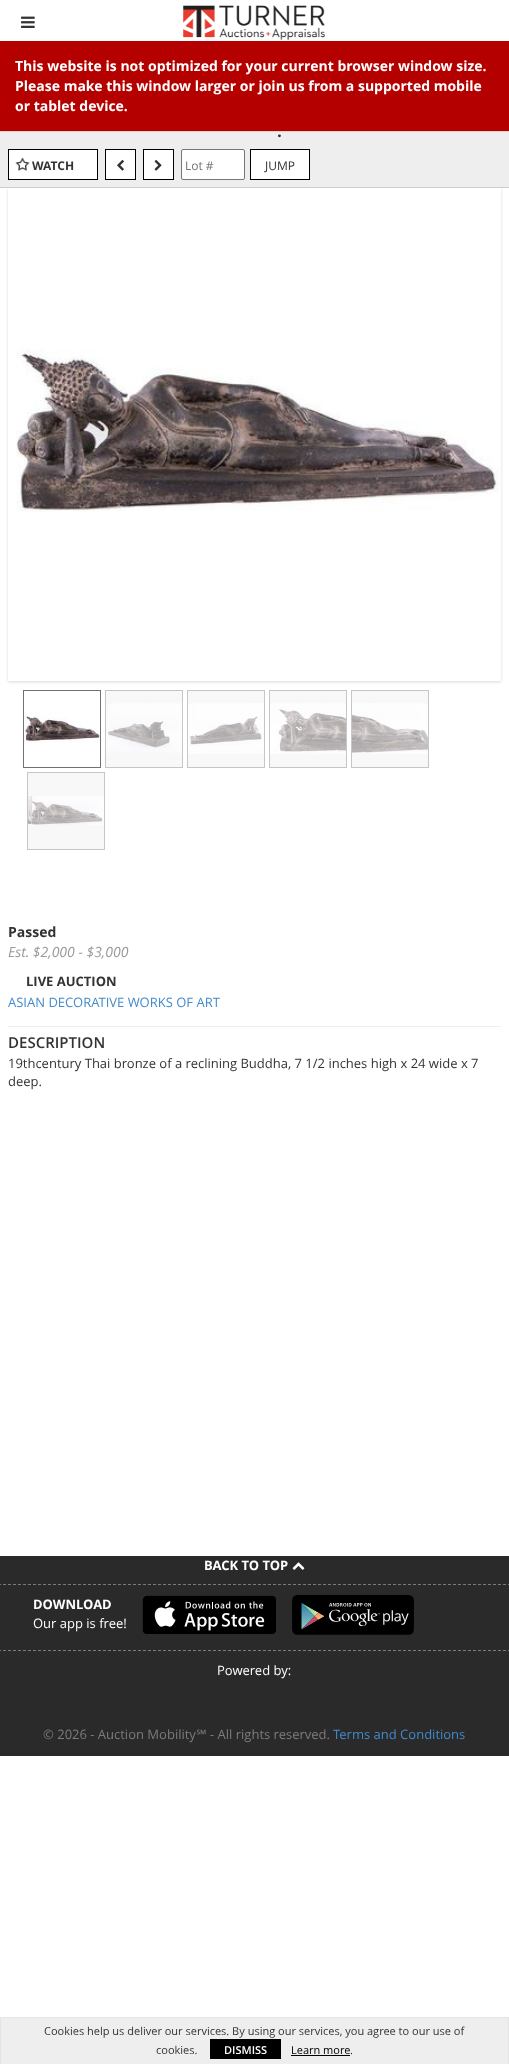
<svg xmlns="http://www.w3.org/2000/svg" width="509" height="2064" viewBox="0 0 509 2064">
  <defs>
    <clipPath id="clip1"><path d="M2 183H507V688H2ZM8 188H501V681H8Z" clip-rule="evenodd"/></clipPath>
    <filter id="blur1" x="-50%" y="-200%" width="200%" height="500%"><feGaussianBlur stdDeviation="1.5"/></filter>
  </defs>
  <rect width="100%" height="100%" fill="#ffffff"/>
  <image x="21" y="16" width="14" height="12" href="img1.png"/>
  <image x="183" y="5" width="142" height="35" href="img2.png"/>
  <rect x="0" y="41" width="509" height="90" fill="#b50000"/>
  <rect x="0" y="131" width="509" height="1" fill="#ebccd1"/>
  <text x="15" y="71" font-family="Open Sans" font-size="14" font-weight="bold" fill="#ffffff">This website is not optimized for your current browser window size.</text>
  <text x="15" y="91" font-family="Open Sans" font-size="14" font-weight="bold" fill="#ffffff">Please make this window larger or join us from a supported mobile</text>
  <text x="15" y="111" font-family="Open Sans" font-size="14" font-weight="bold" fill="#ffffff">or tablet device.</text>
  <rect x="0" y="132" width="509" height="55" fill="#eeeeee"/>
  <rect x="0" y="187" width="509" height="1" fill="#cccccc"/>
  <text x="277" y="137" font-family="Open Sans" font-size="17" font-weight="bold" fill="#333333">.</text>
  <rect x="8.5" y="149.5" width="89" height="30" fill="#ffffff" stroke="#000000"/>
  <image x="15" y="157" width="15" height="14" href="img3.png"/>
  <text x="32" y="170" font-family="Open Sans" font-size="12" font-weight="bold" fill="#333333">WATCH</text>
  <rect x="105.5" y="149.5" width="30" height="30" fill="#ffffff" stroke="#000000"/>
  <image x="117" y="159" width="7" height="12" href="img4.png"/>
  <rect x="143.5" y="149.5" width="30" height="30" fill="#ffffff" stroke="#000000"/>
  <image x="154" y="159" width="8" height="12" href="img5.png"/>
  <rect x="181.5" y="149.5" width="63" height="30" rx="1.5" fill="#ffffff" stroke="#767676"/>
  <text x="185" y="170" font-family="Open Sans" font-size="12" fill="#757575">Lot #</text>
  <rect x="250.5" y="149.5" width="59" height="30" fill="#ffffff" stroke="#000000"/>
  <text x="265" y="170" font-family="Open Sans" font-size="12" fill="#333333">JUMP</text>
  <g clip-path="url(#clip1)">
    <rect x="8" y="189" width="493" height="493" fill="#dad9d7" filter="url(#blur1)"/>
  </g>
  <image x="16" y="349" width="485" height="163" href="img6.png"/>
  <rect x="23.5" y="690.5" width="77" height="77" fill="none" stroke="#717171"/>
  <rect x="105.5" y="690.5" width="77" height="77" fill="none" stroke="#c6c6c6"/>
  <rect x="187.5" y="690.5" width="77" height="77" fill="none" stroke="#c6c6c6"/>
  <rect x="269.5" y="690.5" width="77" height="77" fill="none" stroke="#c6c6c6"/>
  <rect x="351.5" y="690.5" width="77" height="77" fill="none" stroke="#c6c6c6"/>
  <image x="24" y="715" width="76" height="28" href="img7.png"/>
  <image x="106" y="691" width="76" height="76" href="img8.png"/>
  <image x="188" y="691" width="76" height="76" href="img9.png"/>
  <image x="270" y="691" width="76" height="76" href="img10.png"/>
  <image x="352" y="691" width="76" height="76" href="img11.png"/>
  <rect x="27.5" y="772.5" width="77" height="77" fill="none" stroke="#c6c6c6"/>
  <image x="28" y="773" width="76" height="76" href="img12.png"/>
  <text x="8" y="937" font-family="Open Sans" font-size="14" font-weight="bold" fill="#333333">Passed</text>
  <text x="8" y="957" font-family="Open Sans" font-size="14" font-style="italic" fill="#999999">Est. $2,000 - $3,000</text>
  <text x="26" y="986" font-family="Open Sans" font-size="13" font-weight="bold" fill="#333333">LIVE AUCTION</text>
  <text x="8" y="1007" font-family="Open Sans" font-size="13" fill="#428bca">ASIAN DECORATIVE WORKS OF ART</text>
  <rect x="8" y="1026" width="493" height="1" fill="#eeeeee"/>
  <text x="8" y="1048" font-family="Open Sans" font-size="15" font-weight="600" fill="#333333">DESCRIPTION</text>
  <text x="8" y="1068" font-family="Open Sans" font-size="13" fill="#333333">19thcentury Thai bronze of a reclining Buddha, 7 1/2 inches high x 24 wide x 7</text>
  <text x="8" y="1086" font-family="Open Sans" font-size="13" fill="#333333">deep.</text>
  <rect x="0" y="1556" width="509" height="200" fill="#2a2a2a"/>
  <path d="M-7 1584.5H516" fill="none" stroke="#7c7c7c" stroke-dasharray="3 2"/>
  <text x="204" y="1570" font-family="Open Sans" font-size="13" font-weight="bold" fill="#ffffff">BACK TO TOP</text>
  <image x="292" y="1562" width="13" height="8" href="img13.png"/>
  <path d="M-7 1650.5H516" fill="none" stroke="#7c7c7c" stroke-dasharray="3 2"/>
  <text x="33" y="1609" font-family="Open Sans" font-size="13" font-weight="bold" fill="#ffffff">DOWNLOAD</text>
  <text x="33" y="1628" font-family="Open Sans" font-size="13" fill="#ffffff">Our app is free!</text>
  <image x="142" y="1595" width="134" height="39" href="img14.png"/>
  <image x="292" y="1595" width="122" height="40" href="img15.png"/>
  <text x="217" y="1675" font-family="Open Sans" font-size="13" fill="#ffffff">Powered by:</text>
  <text x="43" y="1739" font-family="Open Sans" font-size="13" fill="#7c7c7c">© 2026 - Auction Mobility</text>
  <text x="196" y="1739" font-family="Noto Sans" font-size="13" fill="#7c7c7c">℠</text>
  <text x="210" y="1739" font-family="Open Sans" font-size="13" fill="#7c7c7c">- All rights reserved.</text>
  <text x="333" y="1739" font-family="Open Sans" font-size="13" fill="#428bca">Terms and Conditions</text>
  <rect x="1" y="2018" width="507" height="46" fill="#eeeeee"/>
  <rect x="0" y="2017" width="509" height="1" fill="#e4e4e4"/>
  <rect x="508" y="2017" width="1" height="47" fill="#e4e4e4"/>
  <rect x="0" y="2017" width="1" height="47" fill="#e4e4e4"/>
  <text x="44" y="2035" font-family="Open Sans" font-size="11" fill="#333333">Cookies help us deliver our services. By using our services, you agree to our use of</text>
  <text x="156" y="2054" font-family="Open Sans" font-size="11" fill="#333333">cookies.</text>
  <rect x="210" y="2039" width="71" height="20" fill="#000000"/>
  <text x="224" y="2054" font-family="Open Sans" font-size="11" font-weight="600" fill="#ffffff">DISMISS</text>
  <text x="291" y="2054" font-family="Open Sans" font-size="11" fill="#000000">Learn more</text>
  <rect x="291" y="2055" width="59" height="1" fill="#000000"/>
  <text x="350" y="2054" font-family="Open Sans" font-size="11" fill="#333333">.</text>
</svg>
